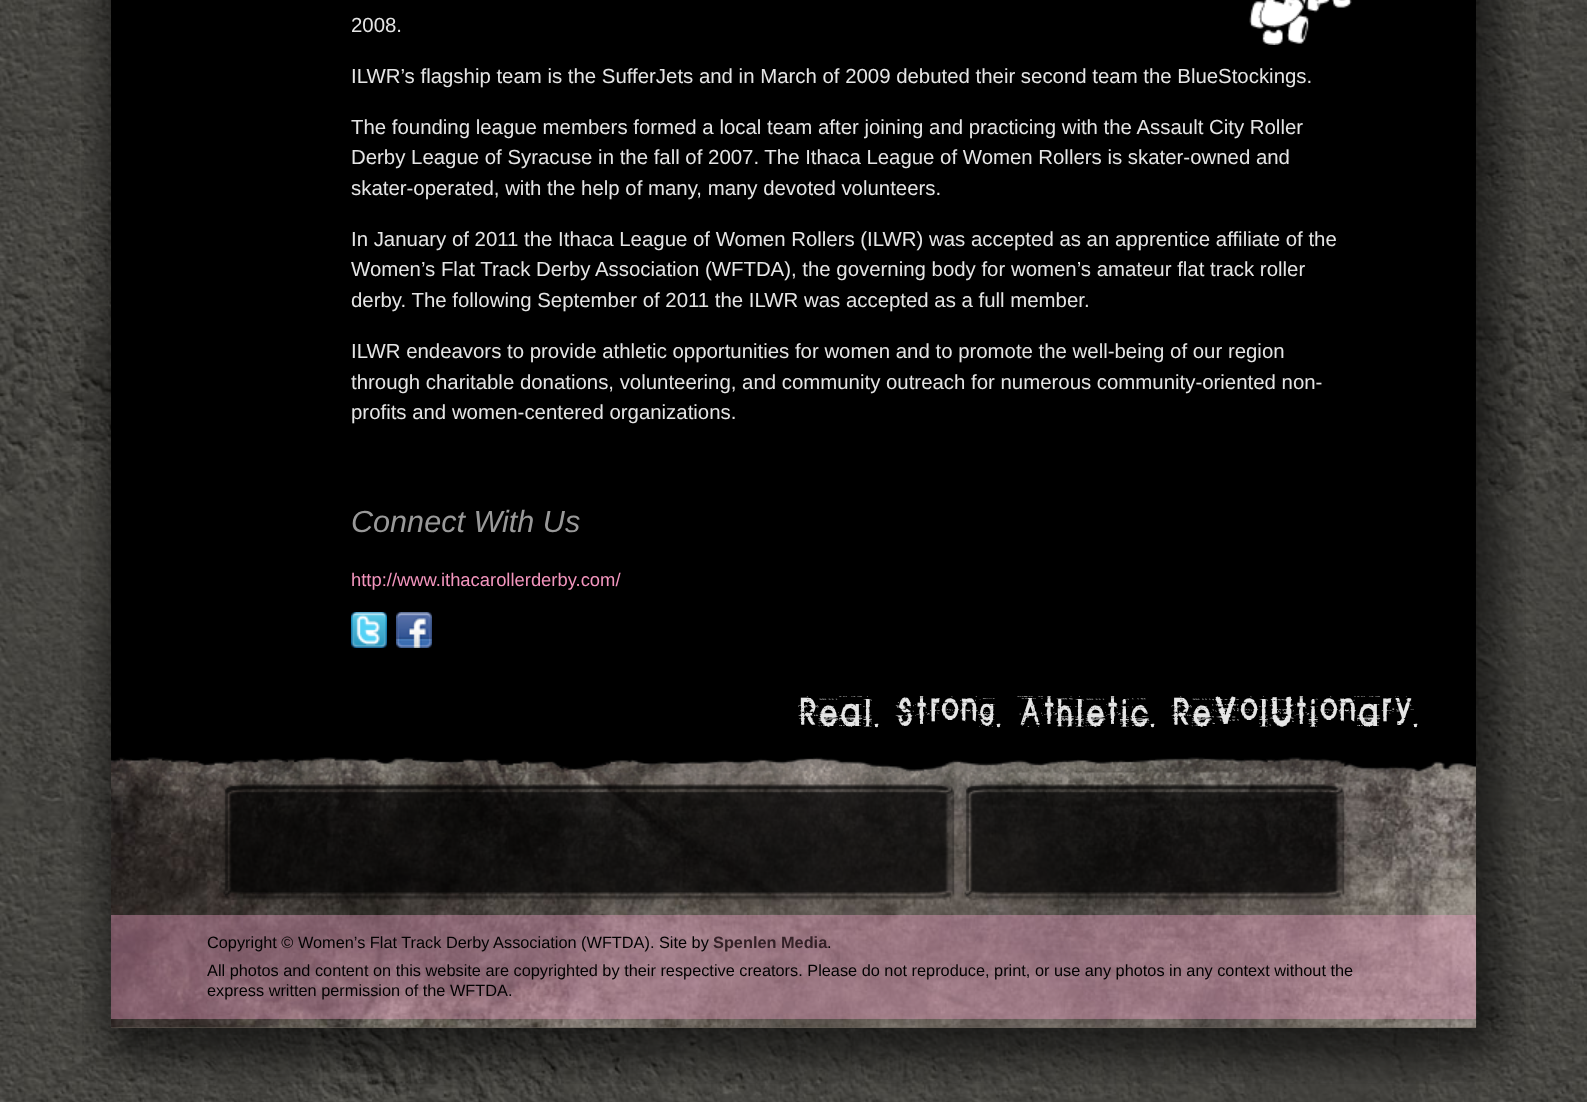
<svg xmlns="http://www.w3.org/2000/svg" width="1587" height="1102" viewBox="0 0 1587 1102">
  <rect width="100%" height="100%" fill="#ffffff"/>
  <image x="0" y="0" width="1587" height="1102" href="img1.png"/>
  <rect x="111" y="0" width="1365" height="772" fill="#000000"/>
  <image x="81" y="0" width="30" height="953" href="img2.png"/>
  <image x="1249" y="0" width="103" height="45" href="img3.png"/>
  <text x="351" y="32" font-family="Liberation Sans" font-size="20.4" fill="#e5e5e5">2008.</text>
  <text x="351" y="83" font-family="Liberation Sans" font-size="20.4" fill="#e5e5e5">ILWR’s flagship team is the SufferJets and in March of 2009 debuted their second team the BlueStockings.</text>
  <text x="351" y="134" font-family="Liberation Sans" font-size="20.4" fill="#e5e5e5">The founding league members formed a local team after joining and practicing with the Assault City Roller</text>
  <text x="351" y="164" font-family="Liberation Sans" font-size="20.4" fill="#e5e5e5">Derby League of Syracuse in the fall of 2007. The Ithaca League of Women Rollers is skater-owned and</text>
  <text x="351" y="195" font-family="Liberation Sans" font-size="20.4" fill="#e5e5e5">skater-operated, with the help of many, many devoted volunteers.</text>
  <text x="351" y="246" font-family="Liberation Sans" font-size="20.4" fill="#e5e5e5">In January of 2011 the Ithaca League of Women Rollers (ILWR) was accepted as an apprentice affiliate of the</text>
  <text x="351" y="276" font-family="Liberation Sans" font-size="20.4" fill="#e5e5e5">Women’s Flat Track Derby Association (WFTDA), the governing body for women’s amateur flat track roller</text>
  <text x="351" y="307" font-family="Liberation Sans" font-size="20.4" fill="#e5e5e5">derby. The following September of 2011 the ILWR was accepted as a full member.</text>
  <text x="351" y="358" font-family="Liberation Sans" font-size="20.4" fill="#e5e5e5">ILWR endeavors to provide athletic opportunities for women and to promote the well-being of our region</text>
  <text x="351" y="389" font-family="Liberation Sans" font-size="20.4" fill="#e5e5e5">through charitable donations, volunteering, and community outreach for numerous community-oriented non-</text>
  <text x="351" y="419" font-family="Liberation Sans" font-size="20.4" fill="#e5e5e5">profits and women-centered organizations.</text>
  <text x="351" y="532" font-family="Liberation Sans" font-size="30.6" font-style="italic" fill="#999999">Connect With Us</text>
  <text x="351" y="586" font-family="Liberation Sans" font-size="18.4" fill="#f395be">http://www.ithacarollerderby.com/</text>
  <image x="351" y="612" width="36" height="36" href="img4.png"/>
  <image x="396" y="612" width="36" height="36" href="img5.png"/>
  <text x="798" y="721" font-family="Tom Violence" font-size="30.6" fill="#e5e5e5">Real. Strong. Athletic. Revolutionary.</text>
  <image x="1476" y="0" width="50" height="953" href="img6.png"/>
  <image x="82" y="952" width="67" height="131" href="img7.png"/>
  <image x="148" y="1028" width="1291" height="56" href="img13.png"/>
  <image x="1438" y="952" width="88" height="130" href="img12.png"/>
  <rect x="111" y="1027" width="1365" height="1" fill="#635c54"/>
  <image x="111" y="773" width="1365" height="255" href="img8.png"/>
  <image x="111" y="757" width="1365" height="41" href="img9.png"/>
  <image x="223" y="784" width="732" height="116" href="img10.png"/>
  <image x="964" y="784" width="381" height="117" href="img11.png"/>
  <rect x="111" y="915" width="1365" height="104" fill="#f2a2c8" fill-opacity="0.4"/>
  <text x="207" y="948" font-family="Liberation Sans" font-size="16.32" fill="#000000">Copyright © Women’s Flat Track Derby Association (WFTDA). Site by</text>
  <text x="713" y="948" font-family="Liberation Sans" font-size="16.32" font-weight="bold" fill="#342127">Spenlen Media</text>
  <text x="827" y="948" font-family="Liberation Sans" font-size="16.32" fill="#000000">.</text>
  <text x="207" y="976" font-family="Liberation Sans" font-size="16.32" fill="#000000">All photos and content on this website are copyrighted by their respective creators. Please do not reproduce, print, or use any photos in any context without the</text>
  <text x="207" y="996" font-family="Liberation Sans" font-size="16.32" fill="#000000">express written permission of the WFTDA.</text>
</svg>
